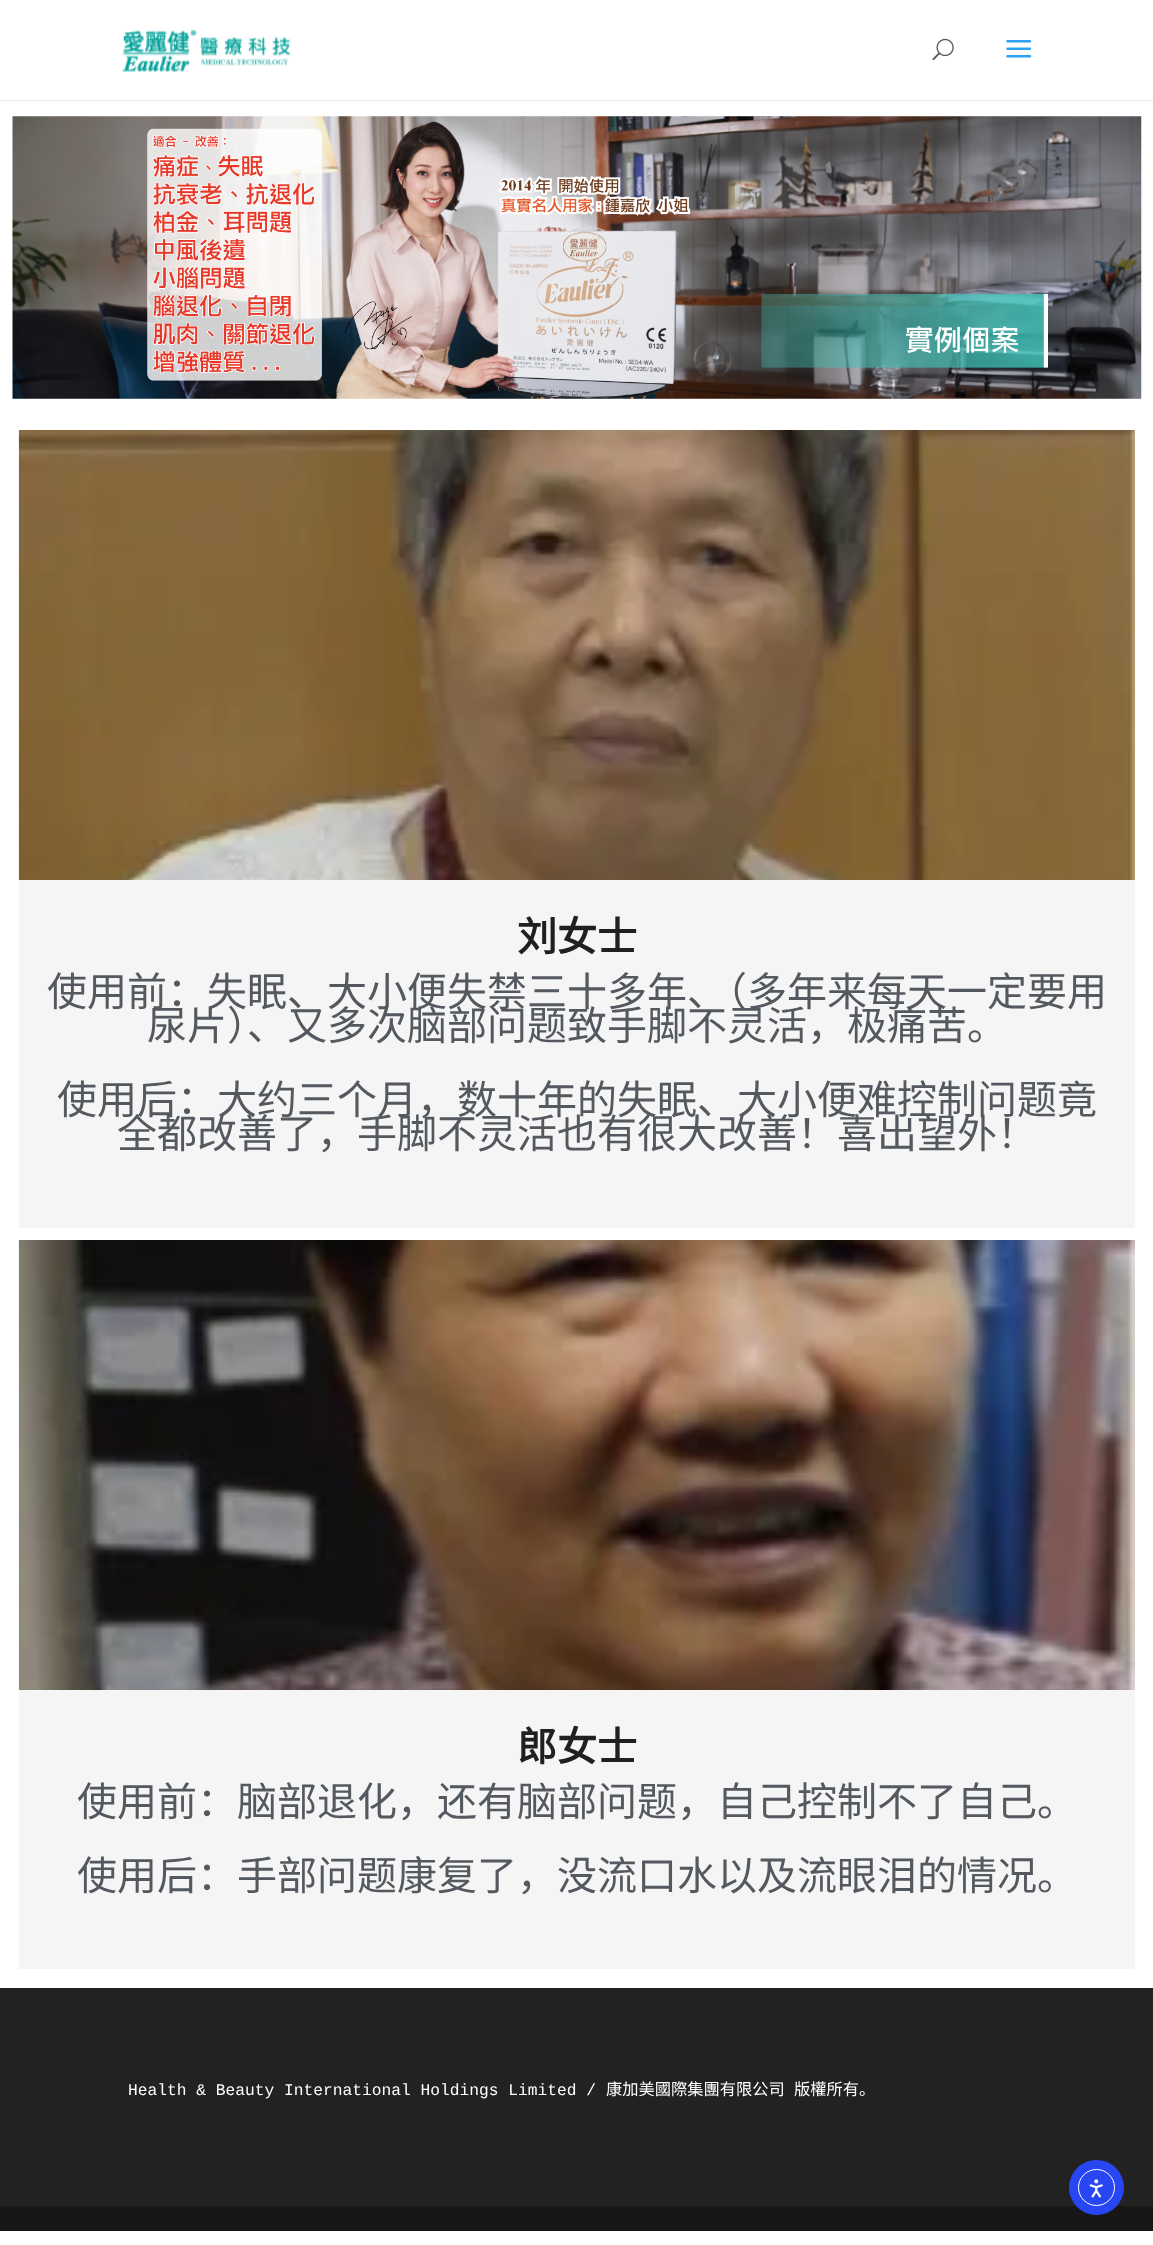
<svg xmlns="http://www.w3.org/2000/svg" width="1153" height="2245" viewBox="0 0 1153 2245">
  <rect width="100%" height="100%" fill="#ffffff"/>
  <path d="M0 100V101H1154V1V100Z" fill="#e6e6e6"/>
  <image x="122" y="29" width="169" height="43" href="img1.png"/>
  <image x="932" y="38" width="22" height="23" href="img2.png"/>
  <image x="1006" y="40" width="26" height="18" href="img3.png"/>
  <image x="12" y="116" width="1130" height="283" href="img4.png"/>
  <image x="18" y="430" width="1117" height="450" href="img5.png"/>
  <rect x="19" y="880" width="1116" height="348" fill="#f5f5f5"/>
  <text x="517" y="951" font-family="Noto Sans CJK SC" font-size="40" font-weight="bold" fill="#202020">刘女士</text>
  <text x="47" y="1006" font-family="Noto Sans CJK SC" font-size="40" fill="#54595f">使用前：失眠、大小便失禁三十多年、（多年来每天一定要用</text>
  <text x="147" y="1040" font-family="Noto Sans CJK SC" font-size="40" fill="#54595f">尿片）、又多次脑部问题致手脚不灵活，极痛苦。</text>
  <text x="57" y="1114" font-family="Noto Sans CJK SC" font-size="40" fill="#54595f">使用后：大约三个月，数十年的失眠、大小便难控制问题竟</text>
  <text x="117" y="1148" font-family="Noto Sans CJK SC" font-size="40" fill="#54595f">全都改善了，手脚不灵活也有很大改善！喜出望外！</text>
  <image x="18" y="1240" width="1117" height="450" href="img6.png"/>
  <rect x="19" y="1690" width="1116" height="279" fill="#f5f5f5"/>
  <text x="517" y="1761" font-family="Noto Sans CJK SC" font-size="40" font-weight="bold" fill="#202020">郎女士</text>
  <text x="77" y="1816" font-family="Noto Sans CJK SC" font-size="40" fill="#54595f">使用前：脑部退化，还有脑部问题，自己控制不了自己。</text>
  <text x="77" y="1890" font-family="Noto Sans CJK SC" font-size="40" fill="#54595f">使用后：手部问题康复了，没流口水以及流眼泪的情况。</text>
  <rect x="0" y="1988" width="1153" height="218" fill="#222222"/>
  <text x="128" y="2095" font-family="Liberation Mono" font-size="16.25" fill="#ffffff">Health &amp; Beauty International Holdings Limited /</text>
  <text x="606" y="2095" font-family="Noto Sans CJK SC" font-size="16.25" fill="#ffffff">康加美國際集團有限公司</text>
  <text x="794" y="2095" font-family="Noto Sans CJK SC" font-size="16.25" fill="#ffffff">版權所有。</text>
  <rect x="0" y="2206" width="1153" height="25" fill="#171717"/>
  <circle cx="1096.5" cy="2187.5" r="27.5" fill="#2847f3"/>
  <circle cx="1096.5" cy="2187.5" r="18" fill="none" stroke="#ffffff"/>
  <image x="1089" y="2179" width="14" height="19" href="img7.png"/>
</svg>
